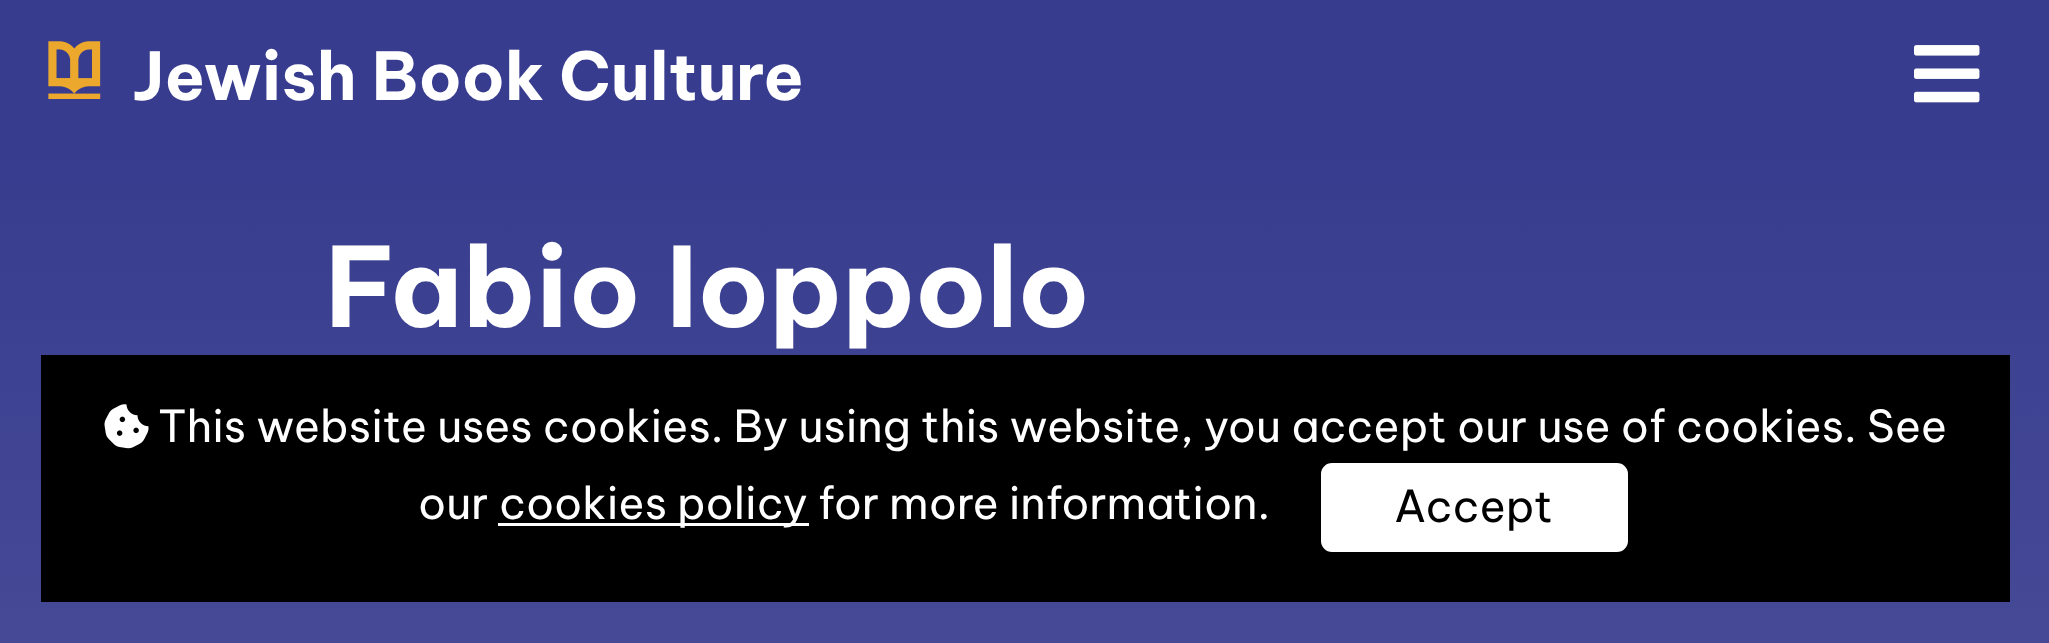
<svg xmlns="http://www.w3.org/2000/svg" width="2049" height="643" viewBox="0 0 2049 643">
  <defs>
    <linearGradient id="g1" gradientUnits="userSpaceOnUse" x1="1026" y1="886" x2="1026" y2="146"><stop offset="0" stop-color="#4c509a"/><stop offset="1" stop-color="#373c8e"/></linearGradient>
  </defs>
  <rect width="100%" height="100%" fill="#ffffff"/>
  <rect x="0" y="0" width="2049" height="149" fill="#373c8e"/>
  <image x="48" y="41" width="53" height="58" href="img1.png"/>
  <text x="132" y="100" font-family="Be Vietnam Pro" font-size="66" font-weight="bold" fill="#ffffff">Jewish Book Culture</text>
  <image x="1914" y="45" width="66" height="58" href="img2.png"/>
  <rect x="0" y="149" width="2049" height="494" fill="url(#g1)"/>
  <text x="325" y="327" font-family="Be Vietnam Pro" font-size="110" font-weight="bold" fill="#ffffff">Fabio Ioppolo</text>
  <rect x="41" y="355" width="1969" height="247" fill="#000000"/>
  <image x="104" y="404" width="45" height="45" href="img3.png"/>
  <text x="158" y="442" font-family="Be Vietnam Pro" font-size="44" fill="#ffffff">This website uses cookies. By using this website, you accept our use of cookies. See</text>
  <text x="418" y="519" font-family="Be Vietnam Pro" font-size="44" fill="#ffffff">our</text>
  <rect x="498" y="523" width="311" height="3" fill="#ffffff"/>
  <text x="499" y="519" font-family="Be Vietnam Pro" font-size="44" fill="#ffffff">cookies policy for more information.</text>
  <rect x="1318" y="460" width="313" height="95" rx="14" fill="#ffffff" stroke="#000000" stroke-width="6"/>
  <text x="1394" y="522" font-family="Be Vietnam Pro" font-size="44" fill="#000000">Accept</text>
</svg>
